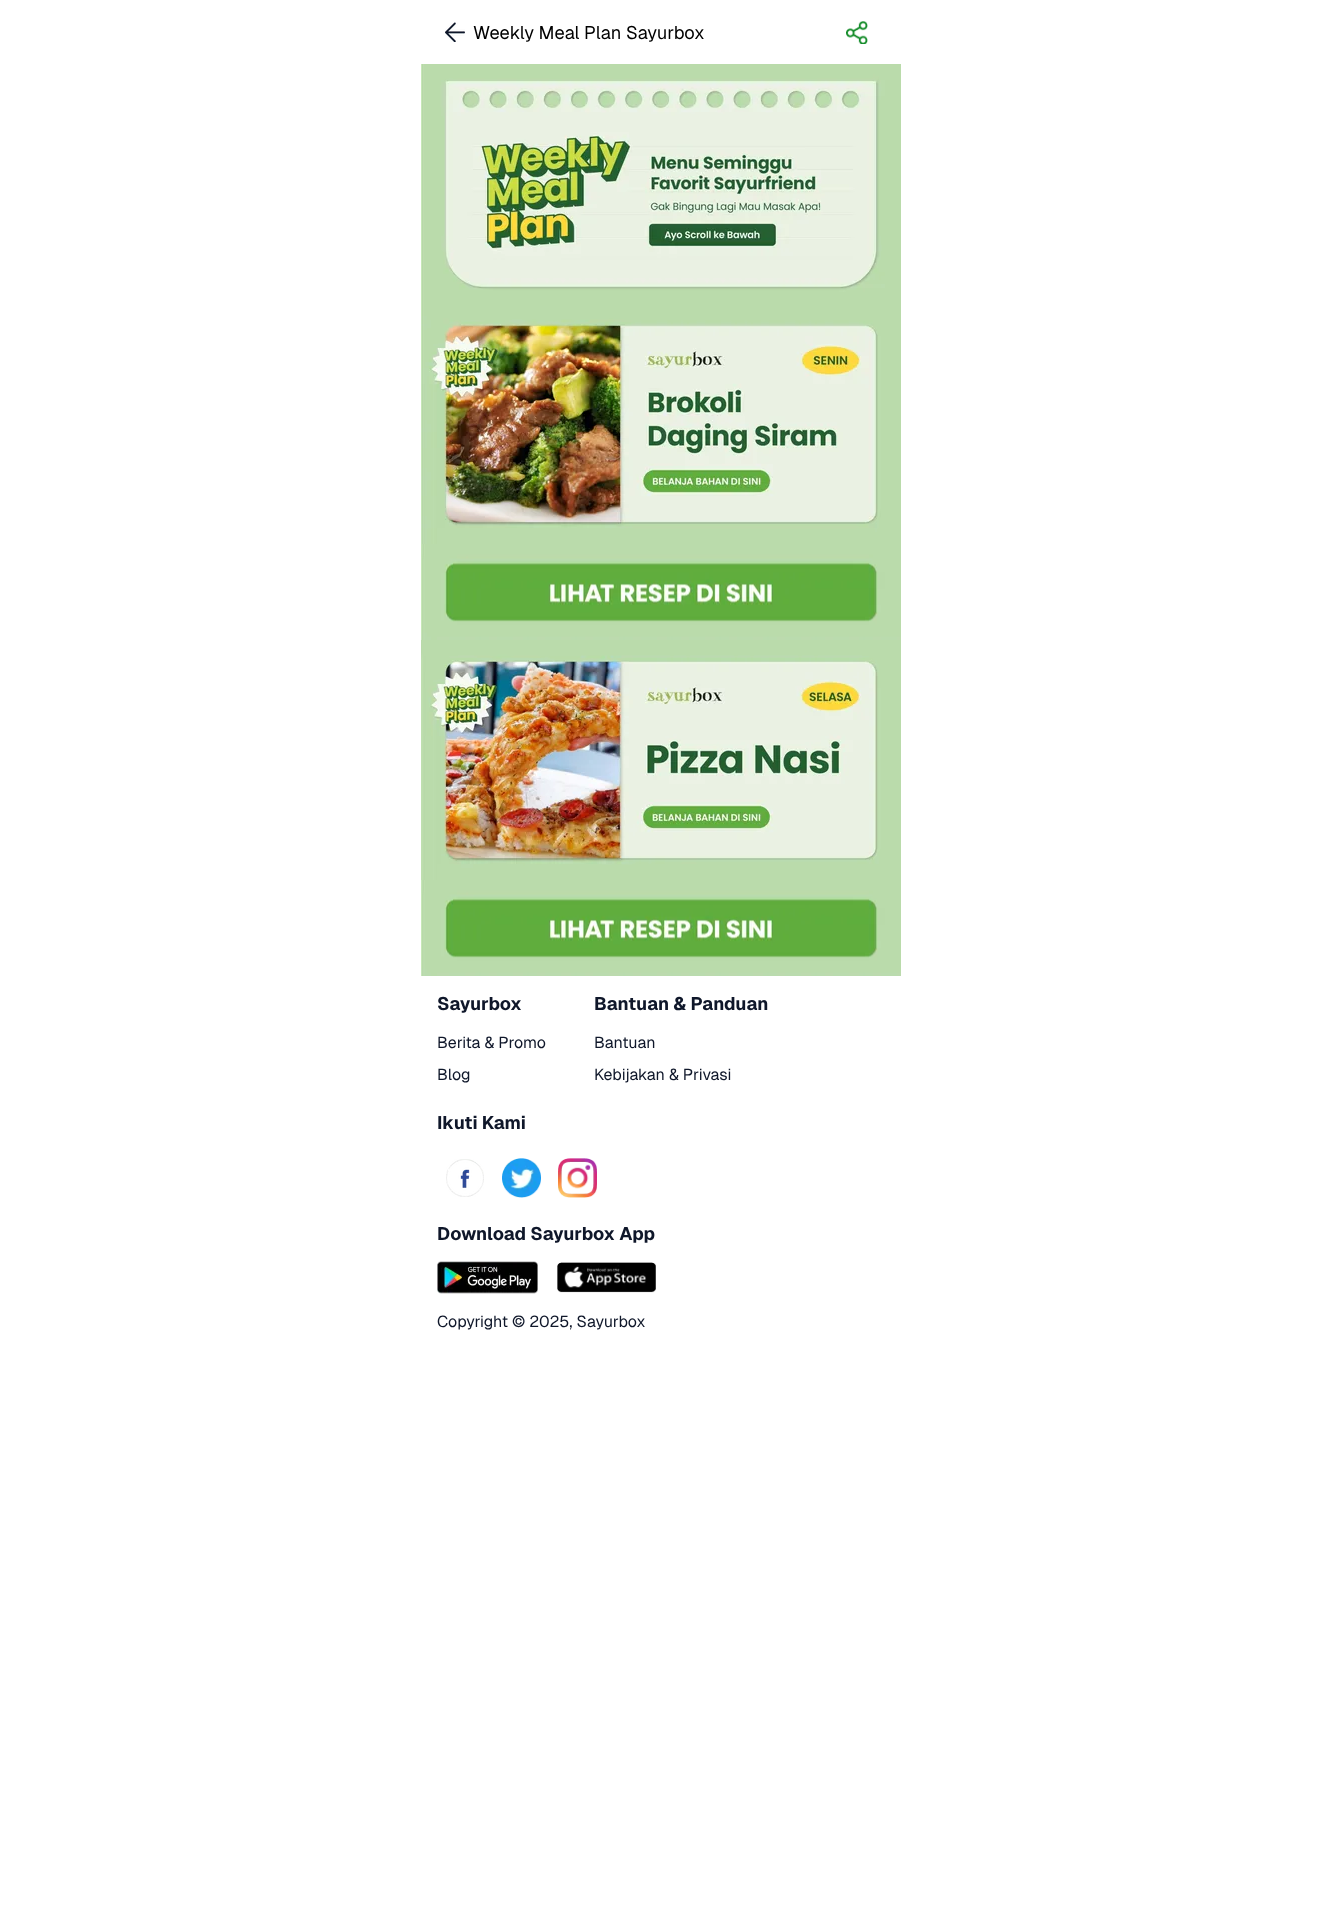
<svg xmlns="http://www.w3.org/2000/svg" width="1322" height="1931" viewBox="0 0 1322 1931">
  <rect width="100%" height="100%" fill="#ffffff"/>
  <image x="445" y="22" width="20" height="20" href="img1.png"/>
  <text x="473" y="39" font-family="Geist" font-size="18.25" fill="#000000">Weekly Meal Plan Sayurbox</text>
  <image x="846" y="21" width="22" height="23" href="img2.png"/>
  <image x="421" y="64" width="480" height="240" href="img3.png"/>
  <image x="421" y="304" width="480" height="240" href="img4.png"/>
  <image x="421" y="544" width="480" height="96" href="img5.png"/>
  <image x="421" y="640" width="480" height="240" href="img6.png"/>
  <image x="421" y="880" width="480" height="96" href="img5.png"/>
  <text x="437" y="1010" font-family="Geist" font-size="18.25" font-weight="bold" fill="#0f172a">Sayurbox</text>
  <text x="437" y="1048" font-family="Geist" font-size="16" fill="#0f172a">Berita &amp; Promo</text>
  <text x="437" y="1080" font-family="Geist" font-size="16" fill="#0f172a">Blog</text>
  <text x="594" y="1010" font-family="Geist" font-size="18.25" font-weight="bold" fill="#0f172a">Bantuan &amp; Panduan</text>
  <text x="594" y="1048" font-family="Geist" font-size="16" fill="#0f172a">Bantuan</text>
  <text x="594" y="1080" font-family="Geist" font-size="16" fill="#0f172a">Kebijakan &amp; Privasi</text>
  <text x="437" y="1129" font-family="Geist" font-size="18.25" font-weight="bold" fill="#0f172a">Ikuti Kami</text>
  <image x="446" y="1159" width="38" height="38" href="img7.png"/>
  <image x="502" y="1158" width="39" height="40" href="img8.png"/>
  <image x="558" y="1158" width="39" height="40" href="img9.png"/>
  <text x="437" y="1240" font-family="Geist" font-size="18.25" font-weight="bold" fill="#0f172a">Download Sayurbox App</text>
  <image x="437" y="1261" width="101" height="33" href="img10.png"/>
  <image x="557" y="1262" width="99" height="31" href="img11.png"/>
  <text x="437" y="1327" font-family="Geist" font-size="16" fill="#0f172a">Copyright © 2025, Sayurbox</text>
</svg>
